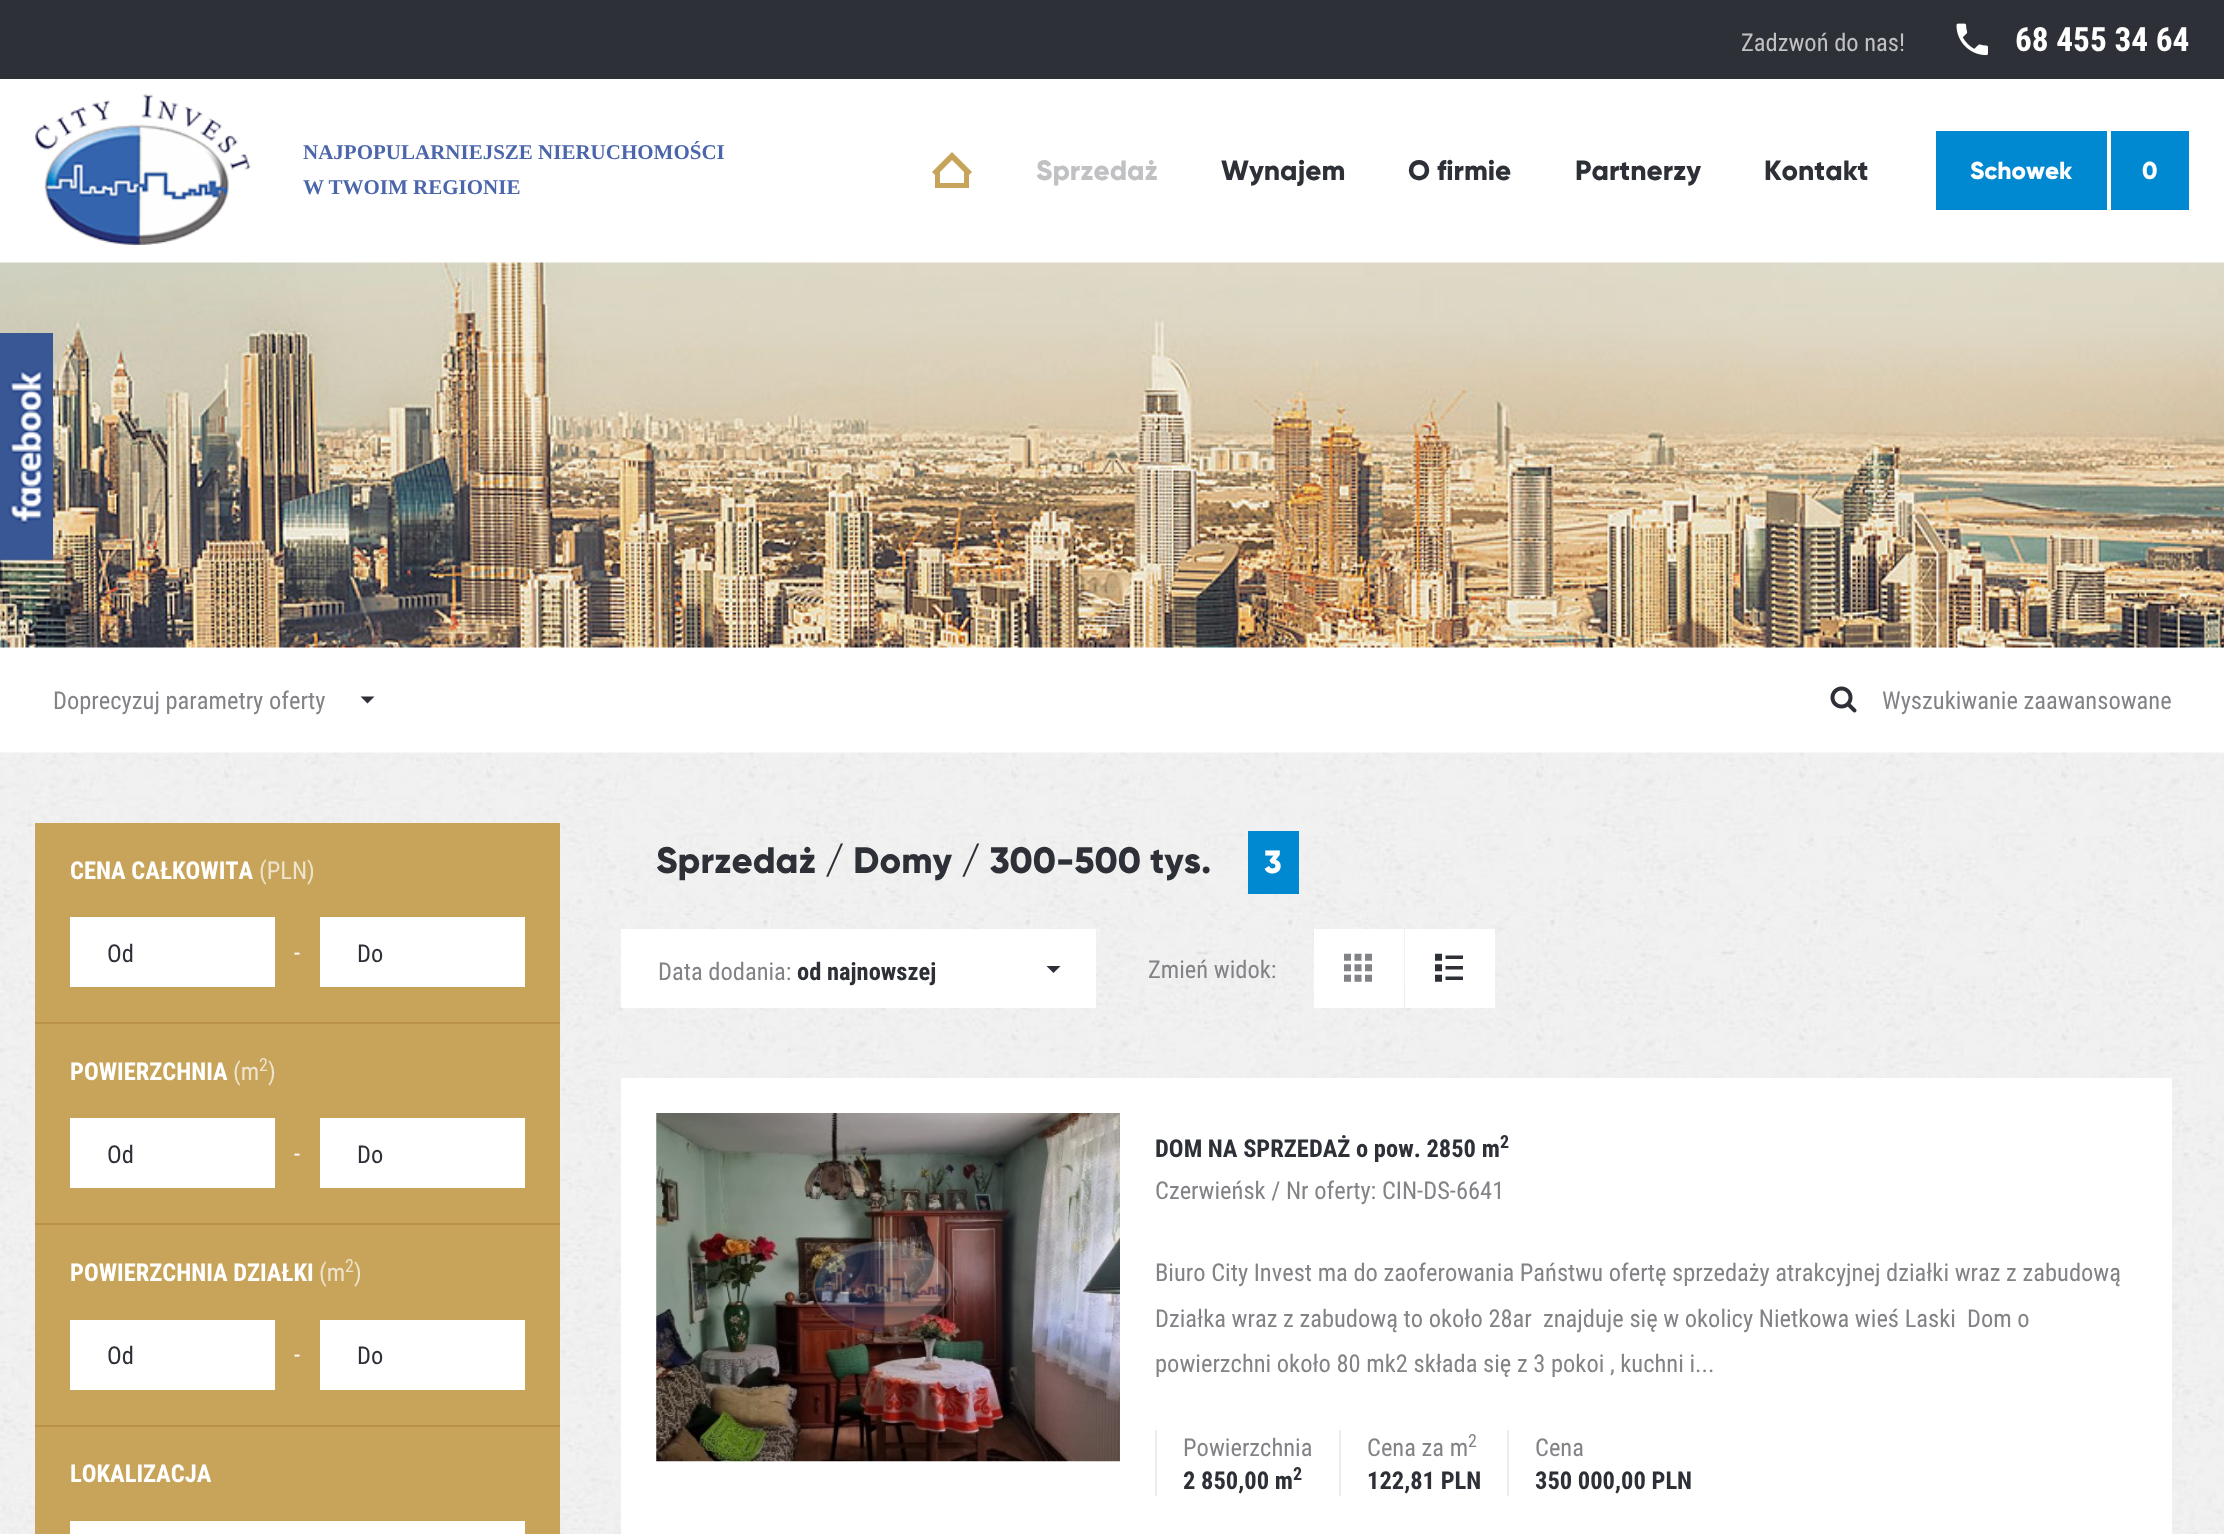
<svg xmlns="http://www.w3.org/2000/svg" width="2224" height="1534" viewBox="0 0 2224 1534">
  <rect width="100%" height="100%" fill="#ffffff"/>
  <image x="0" y="262" width="2224" height="386" href="img4.png"/>
  <image x="0" y="333" width="53" height="228" href="img1.png"/>
  <rect x="0" y="0" width="2224" height="79" fill="#2d3036"/>
  <text x="1741" y="51" font-family="Roboto Condensed" font-size="24.5" fill="#c0c1c3">Zadzwoń do nas!</text>
  <image x="1956" y="23" width="32" height="33" href="img2.png"/>
  <text x="2015" y="51" font-family="Roboto Condensed" font-size="33.25" font-weight="bold" fill="#ffffff">68 455 34 64</text>
  <image x="35" y="94" width="216" height="151" href="img3.png"/>
  <text x="303" y="159" font-family="Liberation Serif" font-size="21" font-weight="bold" fill="#4c66ac">NAJPOPULARNIEJSZE NIERUCHOMOŚCI</text>
  <text x="303" y="194" font-family="Liberation Serif" font-size="21" font-weight="bold" fill="#4c66ac">W TWOIM REGIONIE</text>
  <path d="M972 172L952 152L932 172L935 175V188H969V175ZM940 183V172L952 160L964 172V183Z" fill="#c7a459"/>
  <text x="1036" y="180" font-family="Gilroy" font-size="28" font-weight="800" fill="#c0c1c3">Sprzedaż</text>
  <text x="1221" y="180" font-family="Gilroy" font-size="28" font-weight="800" fill="#2d3036">Wynajem</text>
  <text x="1408" y="180" font-family="Gilroy" font-size="28" font-weight="800" fill="#2d3036">O firmie</text>
  <text x="1575" y="180" font-family="Gilroy" font-size="28" font-weight="800" fill="#2d3036">Partnerzy</text>
  <text x="1764" y="180" font-family="Gilroy" font-size="28" font-weight="800" fill="#2d3036">Kontakt</text>
  <rect x="1936" y="131" width="171" height="79" fill="#0088d0"/>
  <text x="1970" y="179" font-family="Gilroy" font-size="24.5" font-weight="800" fill="#ffffff">Schowek</text>
  <rect x="2111" y="131" width="78" height="79" fill="#0088d0"/>
  <text x="2142" y="179" font-family="Gilroy" font-size="24.5" font-weight="800" fill="#ffffff">0</text>
  <text x="53" y="709" font-family="Roboto Condensed" font-size="24.5" fill="#828386">Doprecyzuj parametry oferty</text>
  <path d="M360.5 696.5H374.5L367.5 703.5Z" fill="#2d3036"/>
  <image x="1830" y="686" width="27" height="27" href="img5.png"/>
  <text x="1882" y="709" font-family="Roboto Condensed" font-size="24.5" fill="#828386">Wyszukiwanie zaawansowane</text>
  <image x="0" y="752" width="2224" height="782" href="img6.png"/>
  <rect x="35" y="823" width="525" height="711" fill="#c7a459"/>
  <text x="70" y="879" font-family="Roboto Condensed" font-size="24.5" font-weight="bold" fill="#ffffff">CENA CAŁKOWITA</text>
  <text x="259" y="879" font-family="Roboto Condensed" font-size="24.5" fill="#eee4cd">(PLN)</text>
  <rect x="35" y="1022" width="525" height="2" fill="#ba9247"/>
  <rect x="70" y="917" width="205" height="70" fill="#ffffff"/>
  <text x="107" y="962" font-family="Roboto Condensed" font-size="24.5" fill="#2d3036">Od</text>
  <text x="294" y="961" font-family="Roboto Condensed" font-size="24.5" fill="#ffffff">-</text>
  <rect x="320" y="917" width="205" height="70" fill="#ffffff"/>
  <text x="357" y="962" font-family="Roboto Condensed" font-size="24.5" fill="#2d3036">Do</text>
  <text x="70" y="1080" font-family="Roboto Condensed" font-size="24.5" font-weight="bold" fill="#ffffff">POWIERZCHNIA</text>
  <text x="233" y="1080" font-family="Roboto Condensed" font-size="24.5" fill="#eee4cd">(m</text>
  <text x="259" y="1071" font-family="Roboto Condensed" font-size="18" fill="#eee4cd">2</text>
  <text x="268" y="1080" font-family="Roboto Condensed" font-size="24.5" fill="#eee4cd">)</text>
  <rect x="35" y="1223" width="525" height="2" fill="#ba9247"/>
  <rect x="70" y="1118" width="205" height="70" fill="#ffffff"/>
  <text x="107" y="1163" font-family="Roboto Condensed" font-size="24.5" fill="#2d3036">Od</text>
  <text x="294" y="1162" font-family="Roboto Condensed" font-size="24.5" fill="#ffffff">-</text>
  <rect x="320" y="1118" width="205" height="70" fill="#ffffff"/>
  <text x="357" y="1163" font-family="Roboto Condensed" font-size="24.5" fill="#2d3036">Do</text>
  <text x="70" y="1281" font-family="Roboto Condensed" font-size="24.5" font-weight="bold" fill="#ffffff">POWIERZCHNIA DZIAŁKI</text>
  <text x="319" y="1281" font-family="Roboto Condensed" font-size="24.5" fill="#eee4cd">(m</text>
  <text x="345" y="1272" font-family="Roboto Condensed" font-size="18" fill="#eee4cd">2</text>
  <text x="354" y="1281" font-family="Roboto Condensed" font-size="24.5" fill="#eee4cd">)</text>
  <rect x="35" y="1425" width="525" height="2" fill="#ba9247"/>
  <rect x="70" y="1320" width="205" height="70" fill="#ffffff"/>
  <text x="107" y="1364" font-family="Roboto Condensed" font-size="24.5" fill="#2d3036">Od</text>
  <text x="294" y="1363" font-family="Roboto Condensed" font-size="24.5" fill="#ffffff">-</text>
  <rect x="320" y="1320" width="205" height="70" fill="#ffffff"/>
  <text x="357" y="1364" font-family="Roboto Condensed" font-size="24.5" fill="#2d3036">Do</text>
  <text x="70" y="1482" font-family="Roboto Condensed" font-size="24.5" font-weight="bold" fill="#ffffff">LOKALIZACJA</text>
  <rect x="70" y="1521" width="455" height="13" fill="#ffffff"/>
  <text x="656" y="873" font-family="Gilroy" font-size="36.75" font-weight="800" fill="#2d3036">Sprzedaż / Domy / 300-500 tys.</text>
  <rect x="1248" y="831" width="51" height="63" fill="#0088d0"/>
  <text x="1264" y="873" font-family="Gilroy" font-size="32" font-weight="800" fill="#ffffff">3</text>
  <rect x="621" y="929" width="475" height="79" fill="#ffffff"/>
  <text x="658" y="980" font-family="Roboto Condensed" font-size="24.5" fill="#828386">Data dodania:</text>
  <text x="797" y="980" font-family="Roboto Condensed" font-size="24.5" font-weight="bold" fill="#2d3036">od najnowszej</text>
  <path d="M1046.5 966H1060.5L1053.5 973Z" fill="#2d3036"/>
  <text x="1148" y="978" font-family="Roboto Condensed" font-size="24.5" fill="#828386">Zmień widok:</text>
  <rect x="1314" y="929" width="90" height="79" fill="#ffffff"/>
  <image x="1344" y="953" width="28" height="29" href="img7.png"/>
  <rect x="1405" y="929" width="90" height="79" fill="#ffffff"/>
  <image x="1435" y="953" width="28" height="29" href="img8.png"/>
  <rect x="621" y="1078" width="1551" height="456" fill="#ffffff"/>
  <image x="656" y="1113" width="464" height="349" href="img9.png"/>
  <text x="1155" y="1157" font-family="Roboto Condensed" font-size="24.5" font-weight="bold" fill="#2d3036">DOM NA SPRZEDAŻ o pow. 2850 m</text>
  <text x="1500" y="1148" font-family="Roboto Condensed" font-size="18" font-weight="bold" fill="#2d3036">2</text>
  <text x="1155" y="1199" font-family="Roboto Condensed" font-size="24.5" fill="#828386">Czerwieńsk / Nr oferty: CIN-DS-6641</text>
  <text x="1155" y="1281" font-family="Roboto Condensed" font-size="24.5" fill="#828386">Biuro City Invest ma do zaoferowania Państwu ofertę sprzedaży atrakcyjnej działki wraz z zabudową</text>
  <text x="1155" y="1327" font-family="Roboto Condensed" font-size="24.5" fill="#828386" xml:space="preserve">Działka wraz z zabudową to około 28ar  znajduje się w okolicy Nietkowa wieś Laski</text>
  <text x="1967" y="1327" font-family="Roboto Condensed" font-size="24.5" fill="#828386">Dom o</text>
  <text x="1155" y="1372" font-family="Roboto Condensed" font-size="24.5" fill="#828386">powierzchni około 80 mk2 składa się z 3 pokoi , kuchni i...</text>
  <rect x="1155" y="1430" width="2" height="66" fill="#ececed"/>
  <text x="1183" y="1456" font-family="Roboto Condensed" font-size="24.5" fill="#828386">Powierzchnia</text>
  <text x="1183" y="1489" font-family="Roboto Condensed" font-size="24.5" font-weight="bold" fill="#2d3036">2 850,00 m</text>
  <text x="1293" y="1480" font-family="Roboto Condensed" font-size="18" font-weight="bold" fill="#2d3036">2</text>
  <rect x="1339" y="1430" width="2" height="66" fill="#ececed"/>
  <text x="1367" y="1456" font-family="Roboto Condensed" font-size="24.5" fill="#828386">Cena za m</text>
  <text x="1468" y="1447" font-family="Roboto Condensed" font-size="18" fill="#828386">2</text>
  <text x="1367" y="1489" font-family="Roboto Condensed" font-size="24.5" font-weight="bold" fill="#2d3036">122,81 PLN</text>
  <rect x="1507" y="1430" width="2" height="66" fill="#ececed"/>
  <text x="1535" y="1456" font-family="Roboto Condensed" font-size="24.5" fill="#828386">Cena</text>
  <text x="1535" y="1489" font-family="Roboto Condensed" font-size="24.5" font-weight="bold" fill="#2d3036">350 000,00 PLN</text>
</svg>
